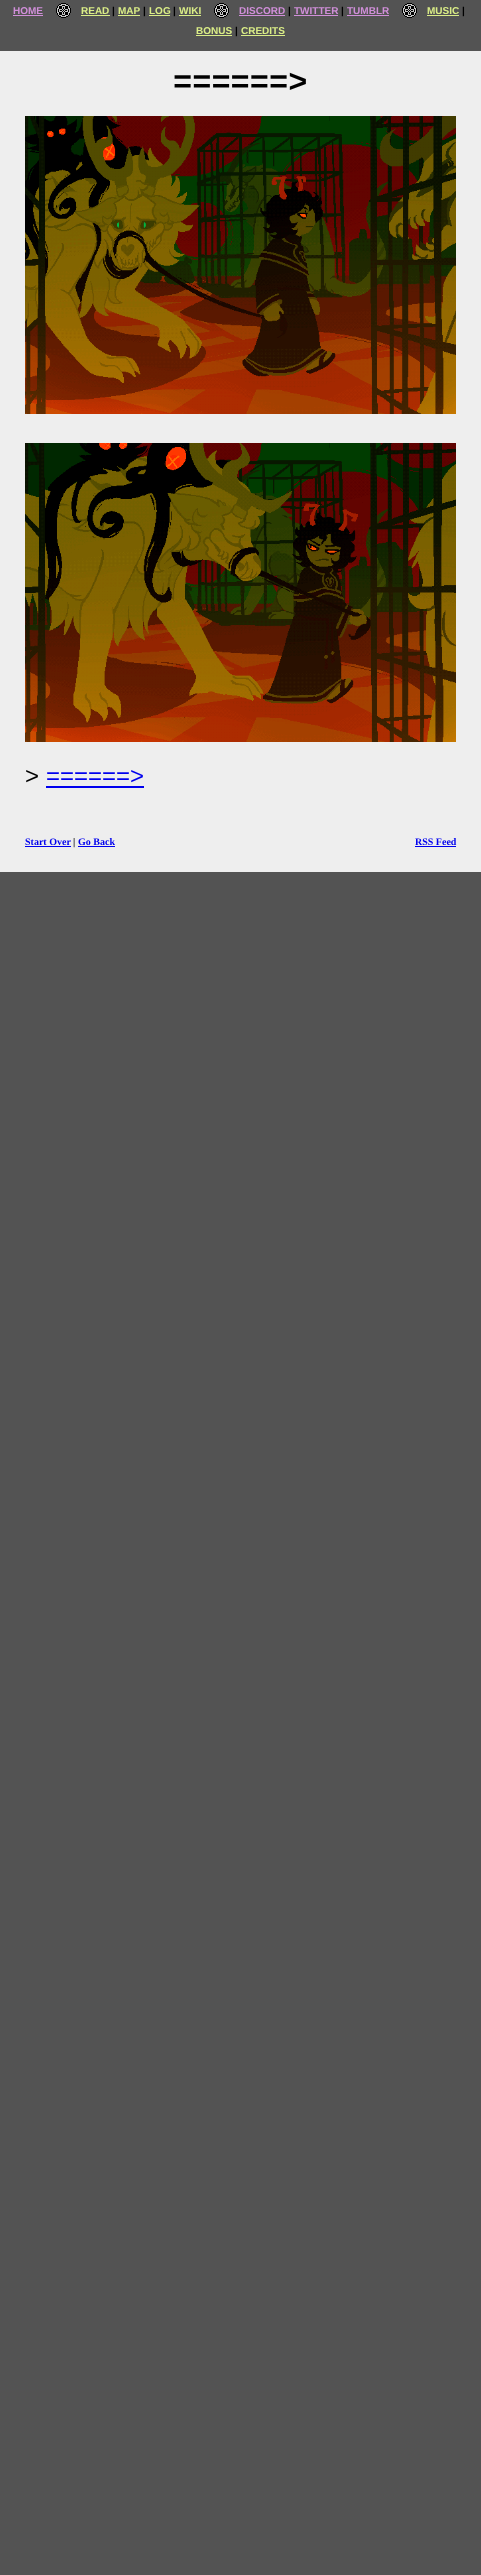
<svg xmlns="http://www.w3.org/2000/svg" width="481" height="2575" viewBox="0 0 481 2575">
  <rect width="100%" height="100%" fill="#535353"/>
  <text x="13" y="14" font-family="Liberation Sans" font-size="10" font-weight="bold" fill="#d08fd9">HOME</text>
  <rect x="13" y="15" width="30" height="1" fill="#d08fd9"/>
  <image x="56" y="3" width="15" height="15" href="img1.png"/>
  <text x="81" y="14" font-family="Liberation Sans" font-size="10" font-weight="bold" fill="#daed87">READ</text>
  <rect x="81" y="15" width="29" height="1" fill="#daed87"/>
  <text x="112" y="14" font-family="Liberation Sans" font-size="10" font-weight="bold" fill="#000000">|</text>
  <text x="118" y="14" font-family="Liberation Sans" font-size="10" font-weight="bold" fill="#daed87">MAP</text>
  <rect x="118" y="15" width="22" height="1" fill="#daed87"/>
  <text x="143" y="14" font-family="Liberation Sans" font-size="10" font-weight="bold" fill="#000000">|</text>
  <text x="149" y="14" font-family="Liberation Sans" font-size="10" font-weight="bold" fill="#daed87">LOG</text>
  <rect x="149" y="15" width="21" height="1" fill="#daed87"/>
  <text x="173" y="14" font-family="Liberation Sans" font-size="10" font-weight="bold" fill="#000000">|</text>
  <text x="179" y="14" font-family="Liberation Sans" font-size="10" font-weight="bold" fill="#daed87">WIKI</text>
  <rect x="179" y="15" width="22" height="1" fill="#daed87"/>
  <image x="214" y="3" width="15" height="15" href="img1.png"/>
  <text x="239" y="14" font-family="Liberation Sans" font-size="10" font-weight="bold" fill="#d08fd9">DISCORD</text>
  <rect x="239" y="15" width="46" height="1" fill="#d08fd9"/>
  <text x="288" y="14" font-family="Liberation Sans" font-size="10" font-weight="bold" fill="#000000">|</text>
  <text x="294" y="14" font-family="Liberation Sans" font-size="10" font-weight="bold" fill="#d08fd9">TWITTER</text>
  <rect x="294" y="15" width="44" height="1" fill="#d08fd9"/>
  <text x="341" y="14" font-family="Liberation Sans" font-size="10" font-weight="bold" fill="#000000">|</text>
  <text x="347" y="14" font-family="Liberation Sans" font-size="10" font-weight="bold" fill="#d08fd9">TUMBLR</text>
  <rect x="347" y="15" width="42" height="1" fill="#d08fd9"/>
  <image x="402" y="3" width="15" height="15" href="img1.png"/>
  <text x="427" y="14" font-family="Liberation Sans" font-size="10" font-weight="bold" fill="#daed87">MUSIC</text>
  <rect x="427" y="15" width="32" height="1" fill="#daed87"/>
  <text x="462" y="14" font-family="Liberation Sans" font-size="10" font-weight="bold" fill="#000000">|</text>
  <text x="196" y="34" font-family="Liberation Sans" font-size="10" font-weight="bold" fill="#daed87">BONUS</text>
  <rect x="196" y="35" width="36" height="1" fill="#daed87"/>
  <text x="235" y="34" font-family="Liberation Sans" font-size="10" font-weight="bold" fill="#000000">|</text>
  <text x="241" y="34" font-family="Liberation Sans" font-size="10" font-weight="bold" fill="#daed87">CREDITS</text>
  <rect x="241" y="35" width="44" height="1" fill="#daed87"/>
  <rect x="0" y="51" width="481" height="821" fill="#eeeeee"/>
  <text x="173" y="92" font-family="Liberation Mono" font-size="32" font-weight="bold" fill="#000000">======&gt;</text>
  <image x="25" y="116" width="431" height="298" href="img2.png"/>
  <image x="25" y="443" width="431" height="299" href="img3.png"/>
  <text x="25" y="784" font-family="Liberation Sans" font-size="24" fill="#000000">&gt;</text>
  <text x="46" y="784" font-family="Liberation Sans" font-size="24" fill="#0000ee">======&gt;</text>
  <rect x="46" y="786" width="98" height="2" fill="#0000ee"/>
  <text x="25" y="845" font-family="Liberation Serif" font-size="10" font-weight="bold" fill="#0000ee">Start Over</text>
  <rect x="25" y="846" width="46" height="1" fill="#0000ee"/>
  <text x="73" y="845" font-family="Liberation Serif" font-size="10" font-weight="bold" fill="#000000">|</text>
  <text x="78" y="845" font-family="Liberation Serif" font-size="10" font-weight="bold" fill="#0000ee">Go Back</text>
  <rect x="78" y="846" width="37" height="1" fill="#0000ee"/>
  <text x="415" y="845" font-family="Liberation Serif" font-size="10" font-weight="bold" fill="#0000ee">RSS Feed</text>
  <rect x="415" y="846" width="41" height="1" fill="#0000ee"/>
</svg>
